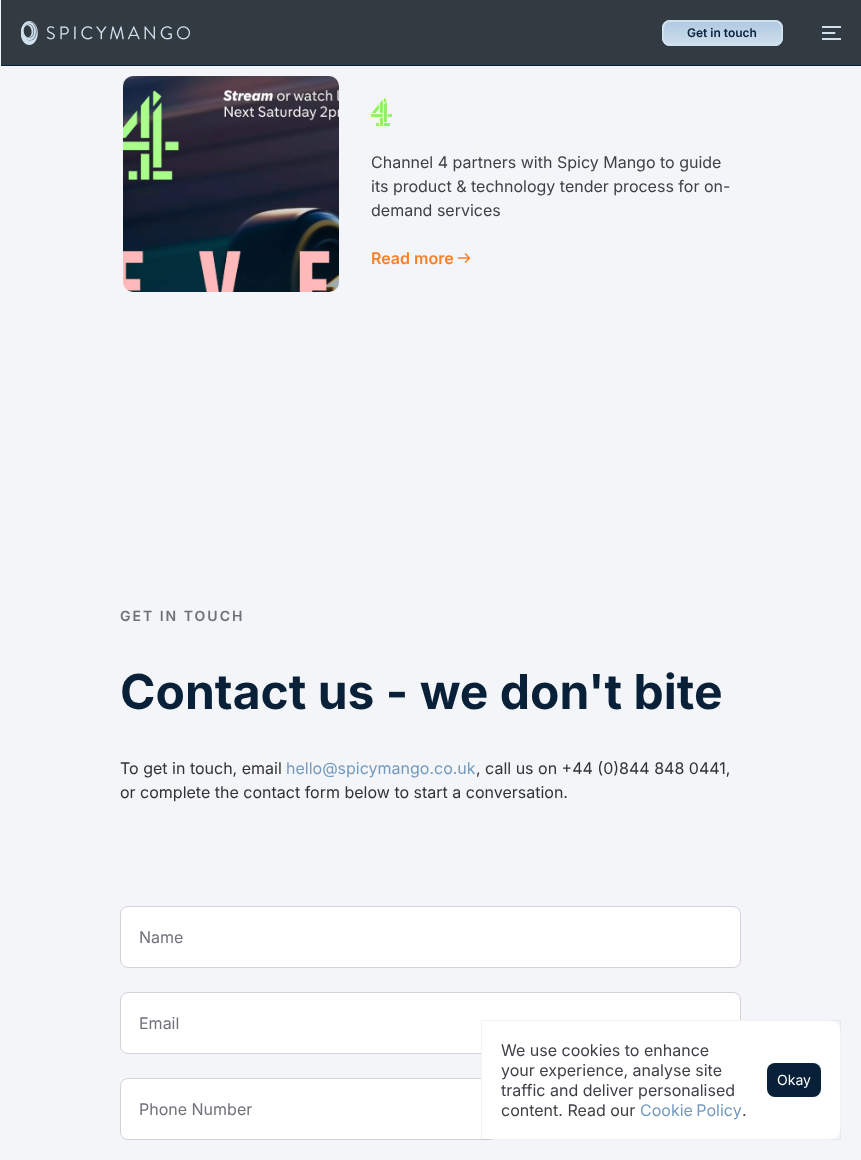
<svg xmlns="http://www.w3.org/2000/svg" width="861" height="1160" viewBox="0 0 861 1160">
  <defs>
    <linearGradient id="g1" gradientUnits="userSpaceOnUse" x1="722" y1="20" x2="722" y2="46"><stop offset="0" stop-color="#adc8e1"/><stop offset="1" stop-color="#d0dfed"/></linearGradient>
  </defs>
  <rect width="100%" height="100%" fill="#f3f5f8"/>
  <rect x="1" y="0" width="860" height="65" fill="#323a42"/>
  <image x="21" y="21" width="169" height="24" href="img1.png"/>
  <rect x="662" y="20" width="121" height="26" rx="8" fill="url(#g1)"/>
  <rect x="663" y="21" width="119" height="24" rx="7" fill="none" stroke="#d1e0ee" stroke-width="2"/>
  <text x="687" y="37" font-family="Inter" font-size="12" font-weight="600" fill="#082138">Get in touch</text>
  <image x="822" y="26" width="19" height="14" href="img2.png"/>
  <rect x="1" y="65" width="860" height="1" fill="#082138"/>
  <image x="123" y="76" width="216" height="216" href="img3.png"/>
  <image x="371" y="98" width="21" height="28" href="img4.png"/>
  <text x="371" y="168" font-family="Inter" font-size="16" fill="#3f3f46">Channel 4 partners with Spicy Mango to guide</text>
  <text x="371" y="192" font-family="Inter" font-size="16" fill="#3f3f46">its product &amp; technology tender process for on-</text>
  <text x="371" y="216" font-family="Inter" font-size="16" fill="#3f3f46">demand services</text>
  <text x="371" y="264" font-family="Inter" font-size="16" font-weight="600" fill="#fc7f26">Read more</text>
  <path d="M458.5 258H469.5M469.5 258L465.5 254M469.5 258L465.5 262" fill="none" stroke="#fc7f26" stroke-width="1.5" stroke-linecap="round" stroke-linejoin="round"/>
  <text x="120" y="621" font-family="Inter" font-size="14" font-weight="600" letter-spacing="2" fill="#71717a">GET IN TOUCH</text>
  <text x="120" y="709" font-family="Inter" font-size="48" font-weight="bold" fill="#082138">Contact us - we don't bite</text>
  <text x="120" y="774" font-family="Inter" font-size="16" fill="#333333">To get in touch, email</text>
  <text x="286" y="774" font-family="Inter" font-size="16" fill="#749abd">hello@spicymango.co.uk</text>
  <text x="476" y="774" font-family="Inter" font-size="16" fill="#333333">, call us on +44 (0)844 848 0441,</text>
  <text x="120" y="798" font-family="Inter" font-size="16" fill="#333333">or complete the contact form below to start a conversation.</text>
  <rect x="120.5" y="906.5" width="620" height="61" rx="7.5" fill="#ffffff" stroke="#d4d4d8"/>
  <text x="139" y="943" font-family="Inter" font-size="16" fill="#71717a">Name</text>
  <rect x="120.5" y="992.5" width="620" height="61" rx="7.5" fill="#ffffff" stroke="#d4d4d8"/>
  <text x="139" y="1029" font-family="Inter" font-size="16" fill="#71717a">Email</text>
  <rect x="120.5" y="1078.5" width="620" height="61" rx="7.5" fill="#ffffff" stroke="#d4d4d8"/>
  <text x="139" y="1115" font-family="Inter" font-size="16" fill="#71717a">Phone Number</text>
  <rect x="481" y="1020" width="360" height="120" rx="14" fill="#ffffff"/>
  <rect x="481.5" y="1020.5" width="359" height="119" fill="none" stroke="#000000" stroke-opacity="0.05"/>
  <text x="501" y="1056" font-family="Inter" font-size="16" fill="#3f3f46">We use cookies to enhance</text>
  <text x="501" y="1076" font-family="Inter" font-size="16" fill="#3f3f46">your experience, analyse site</text>
  <text x="501" y="1096" font-family="Inter" font-size="16" fill="#3f3f46">traffic and deliver personalised</text>
  <text x="501" y="1116" font-family="Inter" font-size="16" fill="#3f3f46">content. Read our</text>
  <text x="640" y="1116" word-spacing="-1" font-family="Inter" font-size="16" fill="#749abd">Cookie Policy</text>
  <text x="742" y="1116" font-family="Inter" font-size="16" fill="#3f3f46">.</text>
  <rect x="767" y="1063" width="54" height="34" rx="8" fill="#082138"/>
  <text x="777" y="1085" font-family="Inter" font-size="14" fill="#ffffff">Okay</text>
</svg>
